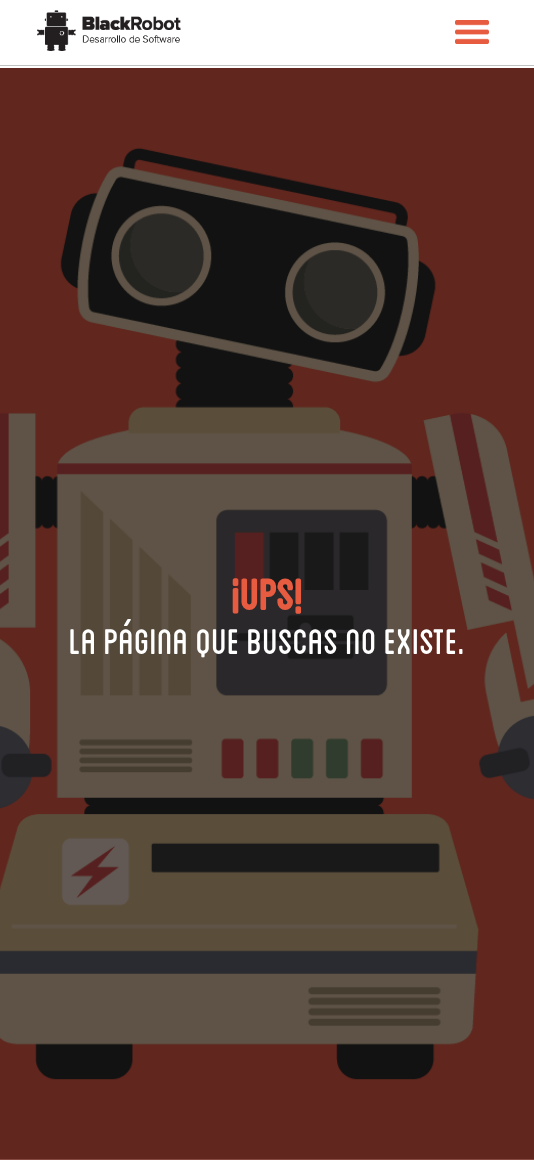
<svg xmlns="http://www.w3.org/2000/svg" width="534" height="1160" viewBox="0 0 534 1160">
  <rect width="100%" height="100%" fill="#ffffff"/>
  <rect x="0" y="65" width="534" height="1" fill="#c1c1c1"/>
  <image x="37" y="10" width="144" height="41" href="img1.png"/>
  <image x="455" y="20" width="34" height="24" href="img2.png"/>
  <image x="0" y="68" width="534" height="1092" href="img3.png"/>
  <text x="231" y="610" font-family="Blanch" font-size="60" font-weight="bold" fill="#e75c41">¡Ups!</text>
  <text x="69" y="654" font-family="Blanch" font-size="50" fill="#ffffff">la página que buscas no existe.</text>
</svg>
